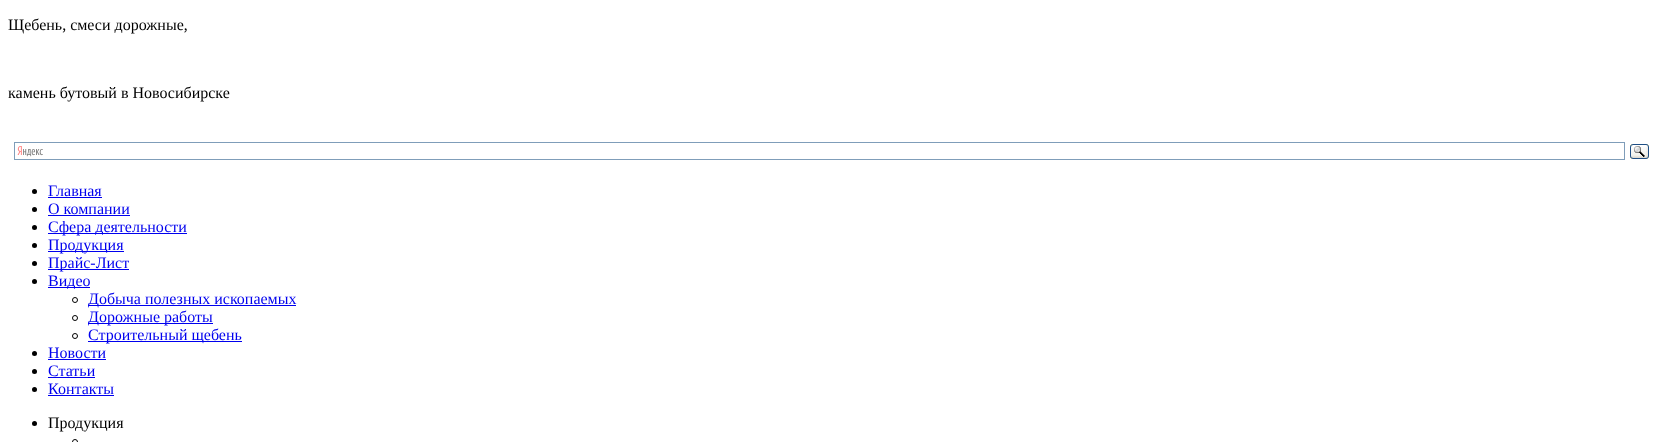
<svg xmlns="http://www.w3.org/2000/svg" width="1663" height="442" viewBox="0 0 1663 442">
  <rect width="100%" height="100%" fill="#ffffff"/>
  <text x="8" y="30" font-family="Liberation Serif" font-size="16" fill="#000000">Щебень, смеси дорожные,</text>
  <text x="8" y="98" font-family="Liberation Serif" font-size="16" fill="#000000">камень бутовый в Новосибирске</text>
  <image x="17" y="146" width="26" height="11" href="img1.png"/>
  <rect x="14.5" y="142.5" width="1610" height="17" fill="none" stroke="#7f9db9"/>
  <image x="1630" y="144" width="19" height="15" href="img2.png"/>
  <circle cx="34.5" cy="191.5" r="2.5" fill="#000000"/>
  <text x="48" y="196" font-family="Liberation Serif" font-size="16" fill="#0000ee">Главная</text>
  <rect x="48" y="197" width="54" height="1" fill="#0000ee"/>
  <circle cx="34.5" cy="209.5" r="2.5" fill="#000000"/>
  <text x="48" y="214" font-family="Liberation Serif" font-size="16" fill="#0000ee">О компании</text>
  <rect x="48" y="215" width="82" height="1" fill="#0000ee"/>
  <circle cx="34.5" cy="227.5" r="2.5" fill="#000000"/>
  <rect x="48" y="233" width="139" height="1" fill="#0000ee"/>
  <text x="48" y="232" font-family="Liberation Serif" font-size="16" fill="#0000ee">Сфера деятельности</text>
  <circle cx="34.5" cy="245.5" r="2.5" fill="#000000"/>
  <rect x="48" y="251" width="76" height="1" fill="#0000ee"/>
  <text x="48" y="250" font-family="Liberation Serif" font-size="16" fill="#0000ee">Продукция</text>
  <circle cx="34.5" cy="263.5" r="2.5" fill="#000000"/>
  <rect x="48" y="269" width="81" height="1" fill="#0000ee"/>
  <text x="48" y="268" font-family="Liberation Serif" font-size="16" fill="#0000ee">Прайс-Лист</text>
  <circle cx="34.5" cy="281.5" r="2.5" fill="#000000"/>
  <rect x="48" y="287" width="42" height="1" fill="#0000ee"/>
  <text x="48" y="286" font-family="Liberation Serif" font-size="16" fill="#0000ee">Видео</text>
  <circle cx="75" cy="300" r="2.5" fill="none" stroke="#000000"/>
  <rect x="88" y="305" width="208" height="1" fill="#0000ee"/>
  <text x="88" y="304" font-family="Liberation Serif" font-size="16" fill="#0000ee">Добыча полезных ископаемых</text>
  <circle cx="75" cy="318" r="2.5" fill="none" stroke="#000000"/>
  <rect x="88" y="323" width="125" height="1" fill="#0000ee"/>
  <text x="88" y="322" font-family="Liberation Serif" font-size="16" fill="#0000ee">Дорожные работы</text>
  <circle cx="75" cy="336" r="2.5" fill="none" stroke="#000000"/>
  <rect x="88" y="341" width="154" height="1" fill="#0000ee"/>
  <text x="88" y="340" font-family="Liberation Serif" font-size="16" fill="#0000ee">Строительный щебень</text>
  <circle cx="34.5" cy="353.5" r="2.5" fill="#000000"/>
  <text x="48" y="358" font-family="Liberation Serif" font-size="16" fill="#0000ee">Новости</text>
  <rect x="48" y="359" width="58" height="1" fill="#0000ee"/>
  <circle cx="34.5" cy="371.5" r="2.5" fill="#000000"/>
  <text x="48" y="376" font-family="Liberation Serif" font-size="16" fill="#0000ee">Статьи</text>
  <rect x="48" y="377" width="47" height="1" fill="#0000ee"/>
  <circle cx="34.5" cy="389.5" r="2.5" fill="#000000"/>
  <text x="48" y="394" font-family="Liberation Serif" font-size="16" fill="#0000ee">Контакты</text>
  <rect x="48" y="395" width="66" height="1" fill="#0000ee"/>
  <circle cx="34.5" cy="423.5" r="2.5" fill="#000000"/>
  <text x="48" y="428" font-family="Liberation Serif" font-size="16" fill="#000000">Продукция</text>
  <circle cx="75" cy="442" r="2.5" fill="none" stroke="#000000"/>
</svg>
